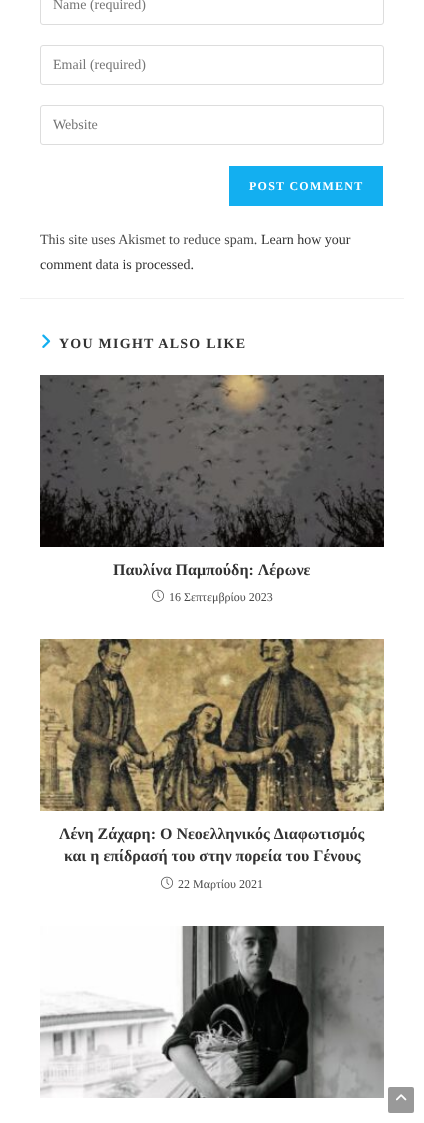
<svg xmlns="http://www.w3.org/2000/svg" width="424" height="1123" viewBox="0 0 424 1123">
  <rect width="100%" height="100%" fill="#ffffff"/>
  <rect x="40.5" y="-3.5" width="343" height="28" rx="2.5" fill="none" stroke="#dddddd"/>
  <text x="53" y="9" font-family="Tinos" font-size="14" fill="#757575">Name (required)</text>
  <rect x="40.5" y="45.5" width="343" height="39" rx="2.5" fill="none" stroke="#dddddd"/>
  <text x="53" y="69" font-family="Tinos" font-size="14" fill="#757575">Email (required)</text>
  <rect x="40.5" y="105.5" width="343" height="39" rx="2.5" fill="none" stroke="#dddddd"/>
  <text x="53" y="129" font-family="Tinos" font-size="14" fill="#757575">Website</text>
  <rect x="229" y="166" width="154" height="40" fill="#13aff0"/>
  <text x="249" y="190" font-family="Tinos" font-size="12" font-weight="bold" letter-spacing="1.25" fill="#ffffff">POST COMMENT</text>
  <text x="40" y="244" font-family="Tinos" font-size="14" fill="#4a4a4a">This site uses Akismet to reduce spam.</text>
  <text x="261" y="244" font-family="Tinos" font-size="14" fill="#333333">Learn how your</text>
  <text x="40" y="269" font-family="Tinos" font-size="14" fill="#333333">comment data is processed.</text>
  <rect x="20" y="298" width="384" height="1" fill="#f1f1f1"/>
  <image x="42" y="334" width="9" height="14" href="img1.png"/>
  <text x="59" y="348" font-family="Tinos" font-size="14" font-weight="bold" letter-spacing="1.25" fill="#333333">YOU MIGHT ALSO LIKE</text>
  <image x="40" y="375" width="344" height="172" href="img2.png"/>
  <text x="113" y="575" font-family="Tinos" font-size="16" font-weight="bold" fill="#333333">Παυλίνα Παμπούδη: Λέρωνε</text>
  <image x="152" y="589" width="12" height="13" href="img3.png"/>
  <text x="169" y="601" font-family="Tinos" font-size="12" fill="#4a4a4a">16 Σεπτεμβρίου 2023</text>
  <image x="40" y="639" width="344" height="172" href="img4.png"/>
  <text x="59" y="839" font-family="Tinos" font-size="16" font-weight="bold" fill="#333333">Λένη Ζάχαρη: Ο Νεοελληνικός Διαφωτισμός</text>
  <text x="64" y="861" font-family="Tinos" font-size="16" font-weight="bold" fill="#333333">και η επίδρασή του στην πορεία του Γένους</text>
  <image x="161" y="876" width="12" height="13" href="img3.png"/>
  <text x="178" y="888" font-family="Tinos" font-size="12" fill="#4a4a4a">22 Μαρτίου 2021</text>
  <image x="40" y="926" width="344" height="172" href="img5.png"/>
  <rect x="388" y="1087" width="26" height="26" rx="2" fill="#999999"/>
  <image x="396" y="1094" width="11" height="7" href="img6.png"/>
</svg>
